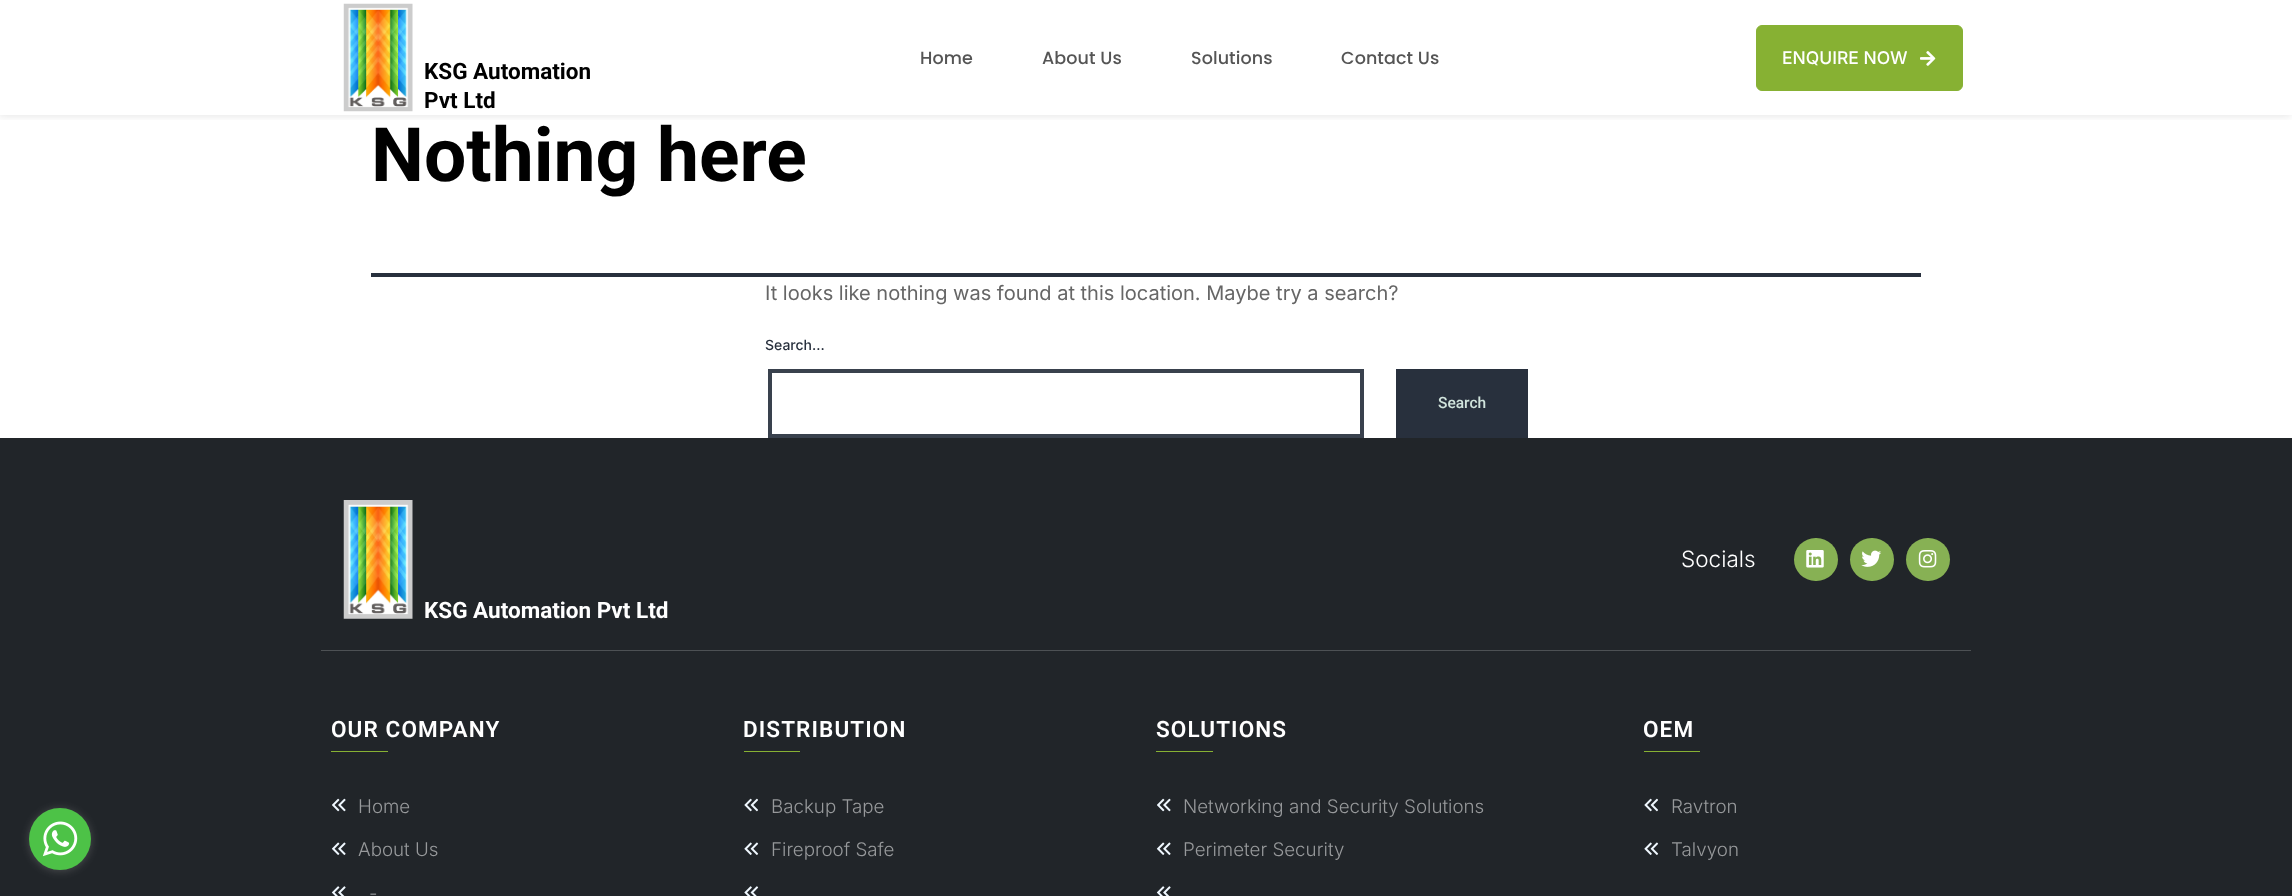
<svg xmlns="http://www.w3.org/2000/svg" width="2292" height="896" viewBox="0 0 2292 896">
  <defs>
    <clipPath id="clip1"><rect x="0" y="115" width="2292" height="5"/></clipPath>
    <filter id="blur1" x="-50%" y="-200%" width="200%" height="500%"><feGaussianBlur stdDeviation="4.5"/></filter>
  </defs>
  <rect width="100%" height="100%" fill="#ffffff"/>
  <g clip-path="url(#clip1)">
    <rect x="-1" y="1" width="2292" height="115" fill="#000000" fill-opacity="0.1" filter="url(#blur1)"/>
  </g>
  <text x="920" y="64" font-family="Poppins" font-size="17.5" font-weight="500" letter-spacing="0.1" fill="#555555">Home</text>
  <text x="1042" y="64" font-family="Poppins" font-size="17.5" font-weight="500" letter-spacing="0.1" fill="#555555">About Us</text>
  <text x="1191" y="64" font-family="Poppins" font-size="17.5" font-weight="500" letter-spacing="0.1" fill="#555555">Solutions</text>
  <text x="1341" y="64" font-family="Poppins" font-size="17.5" font-weight="500" letter-spacing="0.1" fill="#555555">Contact Us</text>
  <rect x="1756.5" y="25.5" width="206" height="65" rx="5.5" fill="#87b133" stroke="#87b133"/>
  <text x="1782" y="64" font-family="Inter" font-size="17.5" font-weight="500" fill="#ffffff">ENQUIRE NOW</text>
  <image x="1920" y="51" width="16" height="15" href="img1.png"/>
  <image x="343" y="3" width="70" height="109" href="img2.png"/>
  <text x="424" y="79" font-family="Roboto" font-size="22.5" font-weight="bold" fill="#000000">KSG Automation</text>
  <text x="424" y="108" font-family="Roboto" font-size="22.5" font-weight="bold" fill="#000000">Pvt Ltd</text>
  <rect x="371" y="273" width="1550" height="4" fill="#28303d"/>
  <text x="371" y="181" font-family="Roboto" font-size="75" font-weight="bold" fill="#000000">Nothing here</text>
  <text x="765" y="300" font-family="Inter" font-size="20" fill="#666666">It looks like nothing was found at this location. Maybe try a search?</text>
  <text x="765" y="350" font-family="Inter" font-size="14" font-weight="500" fill="#28303d">Search…</text>
  <rect x="770" y="371" width="592" height="65" fill="none" stroke="#39414d" stroke-width="4"/>
  <rect x="1396" y="369" width="132" height="69" fill="#28303d"/>
  <text x="1438" y="408" font-family="Roboto" font-size="15.5" font-weight="500" fill="#d1e4dd">Search</text>
  <rect x="0" y="438" width="2292" height="458" fill="#212529"/>
  <rect x="29" y="809" width="62" height="62" rx="31" fill="#888888" fill-opacity="0.4" filter="url(#blur1)"/>
  <circle cx="60" cy="839" r="31" fill="#4dc247"/>
  <image x="42" y="821" width="36" height="36" href="img3.png"/>
  <rect x="321" y="650" width="1650" height="1" fill="#4d5154"/>
  <text x="1681" y="567" font-family="Inter" font-size="22.5" font-weight="300" fill="#ffffff">Socials</text>
  <rect x="1794" y="538" width="44" height="43" rx="21.5" fill="#87b154"/>
  <image x="1806" y="550" width="18" height="18" href="img4.png"/>
  <rect x="1850" y="538" width="44" height="43" rx="21.5" fill="#87b154"/>
  <image x="1861" y="550" width="21" height="17" href="img5.png"/>
  <rect x="1906" y="538" width="44" height="43" rx="21.5" fill="#87b154"/>
  <image x="1918" y="550" width="19" height="18" href="img6.png"/>
  <image x="343" y="500" width="70" height="119" href="img7.png"/>
  <text x="424" y="618" font-family="Roboto" font-size="22.5" font-weight="bold" fill="#ffffff">KSG Automation Pvt Ltd</text>
  <text x="331" y="737" font-family="Roboto" font-size="22.5" font-weight="600" letter-spacing="1.1" fill="#ffffff">OUR COMPANY</text>
  <rect x="331" y="751" width="57" height="1" fill="#87b133"/>
  <image x="332" y="798" width="14" height="14" href="img8.png"/>
  <text x="358" y="813" font-family="Inter" font-size="18.75" font-weight="300" fill="#97999b">Home</text>
  <image x="331" y="842" width="15" height="13" href="img9.png"/>
  <text x="358" y="856" font-family="Inter" font-size="18.75" font-weight="300" fill="#97999b">About Us</text>
  <image x="331" y="886" width="15" height="10" href="img10.png"/>
  <text x="369" y="900" font-family="Inter" font-size="18.75" font-weight="300" fill="#97999b">-</text>
  <text x="743" y="737" font-family="Roboto" font-size="22.5" font-weight="600" letter-spacing="1.1" fill="#ffffff">DISTRIBUTION</text>
  <rect x="744" y="751" width="56" height="1" fill="#87b133"/>
  <image x="744" y="798" width="14" height="14" href="img11.png"/>
  <text x="771" y="813" font-family="Inter" font-size="18.75" font-weight="300" fill="#97999b">Backup Tape</text>
  <image x="744" y="842" width="15" height="13" href="img12.png"/>
  <text x="771" y="856" font-family="Inter" font-size="18.75" font-weight="300" fill="#97999b">Fireproof Safe</text>
  <image x="744" y="886" width="15" height="10" href="img13.png"/>
  <text x="1156" y="737" font-family="Roboto" font-size="22.5" font-weight="600" letter-spacing="1.1" fill="#ffffff">SOLUTIONS</text>
  <rect x="1156" y="751" width="57" height="1" fill="#87b133"/>
  <image x="1157" y="798" width="14" height="14" href="img8.png"/>
  <text x="1183" y="813" font-family="Inter" font-size="18.75" font-weight="300" fill="#97999b">Networking and Security Solutions</text>
  <image x="1156" y="842" width="15" height="13" href="img9.png"/>
  <text x="1183" y="856" font-family="Inter" font-size="18.75" font-weight="300" fill="#97999b">Perimeter Security</text>
  <image x="1156" y="886" width="15" height="10" href="img10.png"/>
  <text x="1643" y="737" font-family="Roboto" font-size="22.5" font-weight="600" letter-spacing="1.1" fill="#ffffff">OEM</text>
  <rect x="1644" y="751" width="56" height="1" fill="#87b133"/>
  <image x="1644" y="798" width="14" height="14" href="img11.png"/>
  <text x="1671" y="813" font-family="Inter" font-size="18.75" font-weight="300" fill="#97999b">Ravtron</text>
  <image x="1644" y="842" width="15" height="13" href="img12.png"/>
  <text x="1671" y="856" font-family="Inter" font-size="18.75" font-weight="300" fill="#97999b">Talvyon</text>
</svg>
